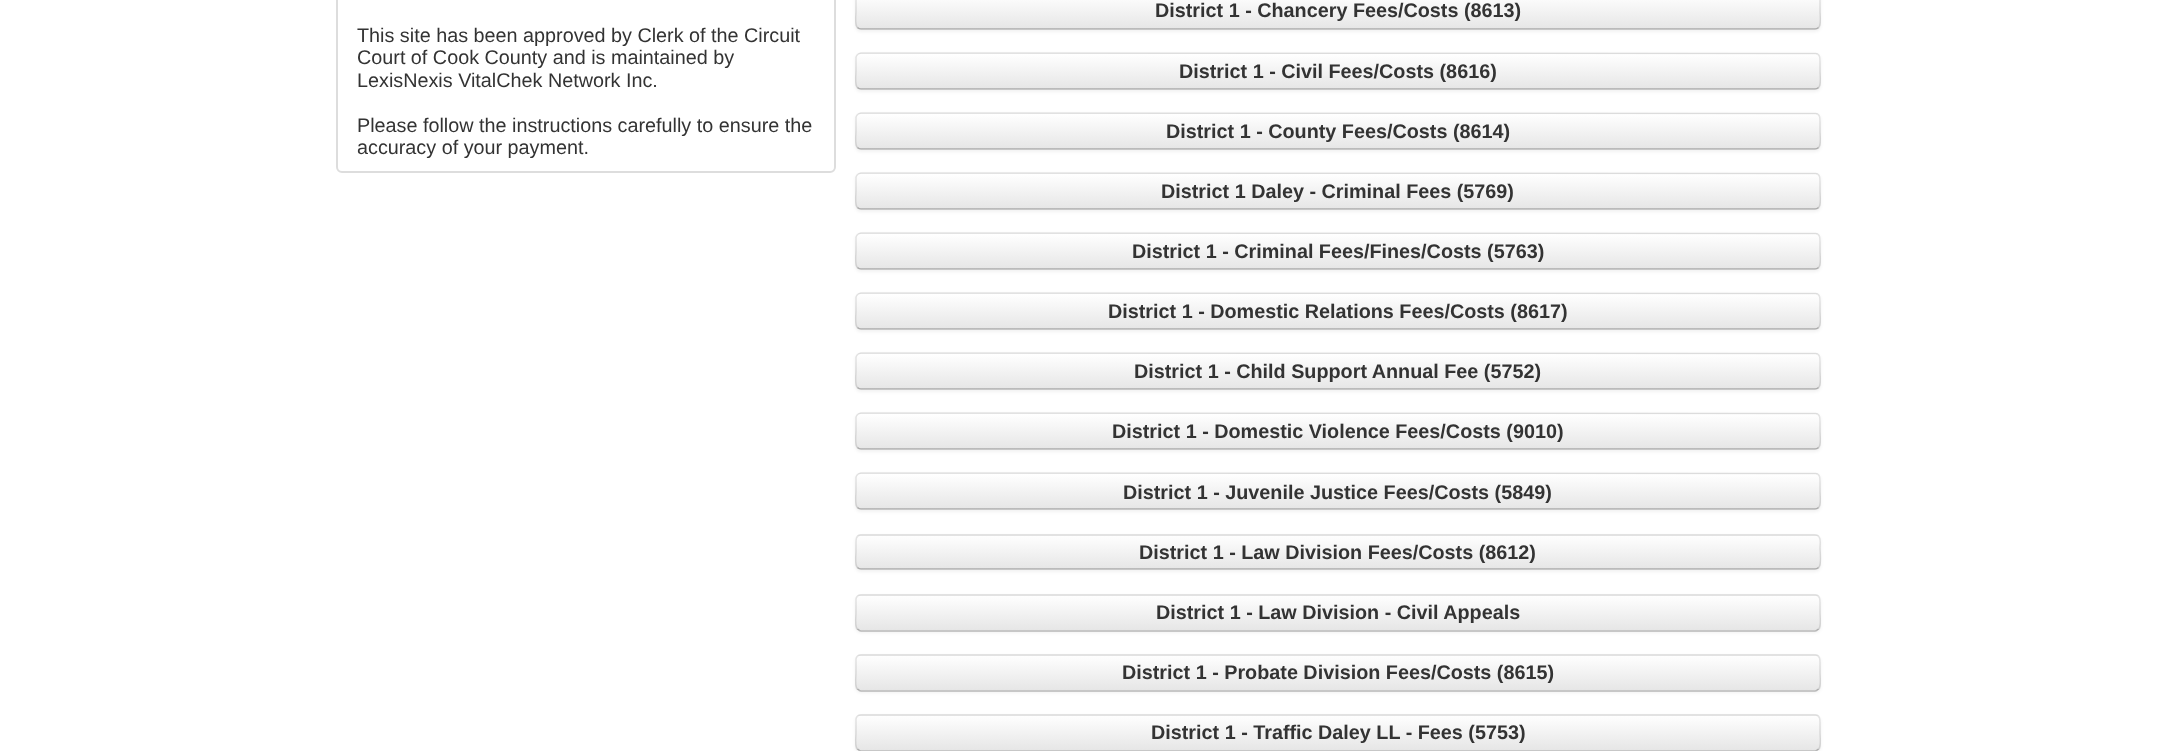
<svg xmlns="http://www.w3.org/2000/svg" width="2171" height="751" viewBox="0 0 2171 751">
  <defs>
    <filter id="blur1" x="-50%" y="-200%" width="200%" height="500%"><feGaussianBlur stdDeviation="1.5"/></filter>
    <clipPath id="clip1"><rect x="855" y="-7" width="966" height="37" rx="6"/></clipPath>
    <linearGradient id="g1" gradientUnits="userSpaceOnUse" x1="1338" y1="-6" x2="1338" y2="29"><stop offset="0" stop-color="#ffffff"/><stop offset="1" stop-color="#e6e6e6"/></linearGradient>
    <clipPath id="clip2"><rect x="855" y="53" width="966" height="37" rx="6"/></clipPath>
    <linearGradient id="g2" gradientUnits="userSpaceOnUse" x1="1338" y1="54" x2="1338" y2="89"><stop offset="0" stop-color="#ffffff"/><stop offset="1" stop-color="#e6e6e6"/></linearGradient>
    <clipPath id="clip3"><rect x="855" y="113" width="966" height="37" rx="6"/></clipPath>
    <linearGradient id="g3" gradientUnits="userSpaceOnUse" x1="1338" y1="114" x2="1338" y2="149"><stop offset="0" stop-color="#ffffff"/><stop offset="1" stop-color="#e6e6e6"/></linearGradient>
    <clipPath id="clip4"><rect x="855" y="173" width="966" height="37" rx="6"/></clipPath>
    <linearGradient id="g4" gradientUnits="userSpaceOnUse" x1="1338" y1="174" x2="1338" y2="209"><stop offset="0" stop-color="#ffffff"/><stop offset="1" stop-color="#e6e6e6"/></linearGradient>
    <clipPath id="clip5"><rect x="855" y="233" width="966" height="37" rx="6"/></clipPath>
    <linearGradient id="g5" gradientUnits="userSpaceOnUse" x1="1338" y1="234" x2="1338" y2="269"><stop offset="0" stop-color="#ffffff"/><stop offset="1" stop-color="#e6e6e6"/></linearGradient>
    <clipPath id="clip6"><rect x="855" y="293" width="966" height="37" rx="6"/></clipPath>
    <linearGradient id="g6" gradientUnits="userSpaceOnUse" x1="1338" y1="294" x2="1338" y2="329"><stop offset="0" stop-color="#ffffff"/><stop offset="1" stop-color="#e6e6e6"/></linearGradient>
    <clipPath id="clip7"><rect x="855" y="353" width="966" height="37" rx="6"/></clipPath>
    <linearGradient id="g7" gradientUnits="userSpaceOnUse" x1="1338" y1="354" x2="1338" y2="389"><stop offset="0" stop-color="#ffffff"/><stop offset="1" stop-color="#e6e6e6"/></linearGradient>
    <clipPath id="clip8"><rect x="855" y="413" width="966" height="37" rx="6"/></clipPath>
    <linearGradient id="g8" gradientUnits="userSpaceOnUse" x1="1338" y1="414" x2="1338" y2="449"><stop offset="0" stop-color="#ffffff"/><stop offset="1" stop-color="#e6e6e6"/></linearGradient>
    <clipPath id="clip9"><rect x="855" y="473" width="966" height="37" rx="6"/></clipPath>
    <linearGradient id="g9" gradientUnits="userSpaceOnUse" x1="1338" y1="474" x2="1338" y2="509"><stop offset="0" stop-color="#ffffff"/><stop offset="1" stop-color="#e6e6e6"/></linearGradient>
    <clipPath id="clip10"><rect x="855" y="534" width="966" height="36" rx="6"/></clipPath>
    <linearGradient id="g10" gradientUnits="userSpaceOnUse" x1="1338" y1="535" x2="1338" y2="569"><stop offset="0" stop-color="#ffffff"/><stop offset="1" stop-color="#e6e6e6"/></linearGradient>
    <clipPath id="clip11"><rect x="855" y="594" width="966" height="38" rx="6"/></clipPath>
    <linearGradient id="g11" gradientUnits="userSpaceOnUse" x1="1338" y1="595" x2="1338" y2="630"><stop offset="0" stop-color="#ffffff"/><stop offset="1" stop-color="#e6e6e6"/></linearGradient>
    <clipPath id="clip12"><rect x="855" y="654" width="966" height="38" rx="6"/></clipPath>
    <linearGradient id="g12" gradientUnits="userSpaceOnUse" x1="1338" y1="655" x2="1338" y2="690"><stop offset="0" stop-color="#ffffff"/><stop offset="1" stop-color="#e6e6e6"/></linearGradient>
    <clipPath id="clip13"><rect x="855" y="714" width="966" height="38" rx="6"/></clipPath>
    <linearGradient id="g13" gradientUnits="userSpaceOnUse" x1="1338" y1="715" x2="1338" y2="750"><stop offset="0" stop-color="#ffffff"/><stop offset="1" stop-color="#e6e6e6"/></linearGradient>
  </defs>
  <rect width="100%" height="100%" fill="#ffffff"/>
  <rect x="337" y="-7" width="498" height="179" rx="5" fill="none" stroke="#dddddd" stroke-width="2"/>
  <text x="357" y="42" font-family="Liberation Sans" font-size="19.8" fill="#333333">This site has been approved by Clerk of the Circuit</text>
  <text x="357" y="64" font-family="Liberation Sans" font-size="19.8" fill="#333333">Court of Cook County and is maintained by</text>
  <text x="357" y="87" font-family="Liberation Sans" font-size="19.8" fill="#333333">LexisNexis VitalChek Network Inc.</text>
  <text x="357" y="132" font-family="Liberation Sans" font-size="19.8" fill="#333333">Please follow the instructions carefully to ensure the</text>
  <text x="357" y="154" font-family="Liberation Sans" font-size="19.8" fill="#333333">accuracy of your payment.</text>
  <rect x="855" y="-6" width="966" height="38" rx="6" fill="#000000" fill-opacity="0.05" filter="url(#blur1)"/>
  <rect x="855" y="-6" width="966" height="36" rx="6" fill="#f5f5f5"/>
  <g clip-path="url(#clip1)">
    <rect x="855" y="0" width="966" height="29" fill="url(#g1)"/>
  </g>
  <path d="M1818.5 27.5C1817.5 28.5 1816.5 29 1815 29H861C859.5 29 858.5 28.5 857.5 27.5" fill="none" stroke="#000000" stroke-opacity="0.25" stroke-width="1.5"/>
  <path d="M857.5 27.5C854.5 25 856 15 856 11.5V-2.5C856.5-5 858.5-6.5 861-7L1815.5-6.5C1820.5-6 1820-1 1820 2.5V11C1820 15 1821.5 25 1818.5 27.5" fill="none" stroke="#000000" stroke-opacity="0.1" stroke-width="1.5"/>
  <text x="1155" y="17" font-family="Liberation Sans" font-size="19.8" font-weight="bold" fill="#333333">District 1 - Chancery Fees/Costs (8613)</text>
  <rect x="855" y="54" width="966" height="38" rx="6" fill="#000000" fill-opacity="0.05" filter="url(#blur1)"/>
  <rect x="855" y="53" width="966" height="37" rx="6" fill="#f5f5f5"/>
  <g clip-path="url(#clip2)">
    <rect x="855" y="54" width="966" height="35" fill="url(#g2)"/>
  </g>
  <path d="M1818.5 87.5C1817.5 88.5 1816.5 89 1815 89H861C859.5 89 858.5 88.5 857.5 87.5" fill="none" stroke="#000000" stroke-opacity="0.25" stroke-width="1.5"/>
  <path d="M857.5 87.5C854.5 85 856 75 856 71V57.5C856.5 55 858.5 53.5 861 53L1815.5 53.5C1820.5 54 1820 59 1820 63V71C1820 75 1821.5 85 1818.5 87.5" fill="none" stroke="#000000" stroke-opacity="0.1" stroke-width="1.5"/>
  <text x="1179" y="78" font-family="Liberation Sans" font-size="19.8" font-weight="bold" fill="#333333">District 1 - Civil Fees/Costs (8616)</text>
  <rect x="855" y="114" width="966" height="38" rx="6" fill="#000000" fill-opacity="0.05" filter="url(#blur1)"/>
  <rect x="855" y="113" width="966" height="37" rx="6" fill="#f5f5f5"/>
  <g clip-path="url(#clip3)">
    <rect x="855" y="114" width="966" height="35" fill="url(#g3)"/>
  </g>
  <path d="M1818.5 147.5C1817.5 148.5 1816.5 149 1815 149H861C859.5 149 858.5 148.5 857.5 147.5" fill="none" stroke="#000000" stroke-opacity="0.25" stroke-width="1.5"/>
  <path d="M857.5 147.5C854.5 145 856 135 856 131V117.5C856.5 115 858.5 113.5 861 113L1815.5 113.5C1820.5 114 1820 119 1820 123V131C1820 135 1821.5 145 1818.5 147.5" fill="none" stroke="#000000" stroke-opacity="0.1" stroke-width="1.5"/>
  <text x="1166" y="138" font-family="Liberation Sans" font-size="19.8" font-weight="bold" fill="#333333">District 1 - County Fees/Costs (8614)</text>
  <rect x="855" y="174" width="966" height="38" rx="6" fill="#000000" fill-opacity="0.05" filter="url(#blur1)"/>
  <rect x="855" y="173" width="966" height="37" rx="6" fill="#f5f5f5"/>
  <g clip-path="url(#clip4)">
    <rect x="855" y="174" width="966" height="35" fill="url(#g4)"/>
  </g>
  <path d="M1818.5 207.5C1817.5 208.5 1816.5 209 1815 209H861C859.5 209 858.5 208.5 857.5 207.5" fill="none" stroke="#000000" stroke-opacity="0.25" stroke-width="1.5"/>
  <path d="M857.5 207.5C854.5 205 856 195 856 191V177.5C856.5 175 858.5 173.5 861 173L1815.5 173.5C1820.5 174 1820 179 1820 183V191C1820 195 1821.5 205 1818.5 207.5" fill="none" stroke="#000000" stroke-opacity="0.1" stroke-width="1.5"/>
  <text x="1161" y="198" font-family="Liberation Sans" font-size="19.8" font-weight="bold" fill="#333333">District 1 Daley - Criminal Fees (5769)</text>
  <rect x="855" y="234" width="966" height="38" rx="6" fill="#000000" fill-opacity="0.05" filter="url(#blur1)"/>
  <rect x="855" y="233" width="966" height="37" rx="6" fill="#f5f5f5"/>
  <g clip-path="url(#clip5)">
    <rect x="855" y="234" width="966" height="35" fill="url(#g5)"/>
  </g>
  <path d="M1818.5 267.5C1817.5 268.5 1816.5 269 1815 269H861C859.5 269 858.5 268.5 857.5 267.5" fill="none" stroke="#000000" stroke-opacity="0.25" stroke-width="1.5"/>
  <path d="M857.5 267.5C854.5 265 856 255 856 251V237.5C856.5 235 858.5 233.5 861 233L1815.5 233.5C1820.5 234 1820 239 1820 243V251C1820 255 1821.5 265 1818.5 267.5" fill="none" stroke="#000000" stroke-opacity="0.1" stroke-width="1.5"/>
  <text x="1132" y="258" font-family="Liberation Sans" font-size="19.8" font-weight="bold" fill="#333333">District 1 - Criminal Fees/Fines/Costs (5763)</text>
  <rect x="855" y="294" width="966" height="38" rx="6" fill="#000000" fill-opacity="0.05" filter="url(#blur1)"/>
  <rect x="855" y="293" width="966" height="37" rx="6" fill="#f5f5f5"/>
  <g clip-path="url(#clip6)">
    <rect x="855" y="294" width="966" height="35" fill="url(#g6)"/>
  </g>
  <path d="M1818.5 327.5C1817.5 328.5 1816.5 329 1815 329H861C859.5 329 858.5 328.5 857.5 327.5" fill="none" stroke="#000000" stroke-opacity="0.25" stroke-width="1.5"/>
  <path d="M857.5 327.5C854.5 325 856 315 856 311V297.5C856.5 295 858.5 293.5 861 293L1815.5 293.5C1820.5 294 1820 299 1820 303V311C1820 315 1821.5 325 1818.5 327.5" fill="none" stroke="#000000" stroke-opacity="0.1" stroke-width="1.5"/>
  <text x="1108" y="318" font-family="Liberation Sans" font-size="19.8" font-weight="bold" fill="#333333">District 1 - Domestic Relations Fees/Costs (8617)</text>
  <rect x="855" y="354" width="966" height="38" rx="6" fill="#000000" fill-opacity="0.05" filter="url(#blur1)"/>
  <rect x="855" y="353" width="966" height="37" rx="6" fill="#f5f5f5"/>
  <g clip-path="url(#clip7)">
    <rect x="855" y="354" width="966" height="35" fill="url(#g7)"/>
  </g>
  <path d="M1818.5 387.5C1817.5 388.5 1816.5 389 1815 389H861C859.5 389 858.5 388.5 857.5 387.5" fill="none" stroke="#000000" stroke-opacity="0.25" stroke-width="1.5"/>
  <path d="M857.5 387.5C854.5 385 856 375 856 371V357.5C856.5 355 858.5 353.5 861 353L1815.5 353.5C1820.5 354 1820 359 1820 363V371C1820 375 1821.5 385 1818.5 387.5" fill="none" stroke="#000000" stroke-opacity="0.1" stroke-width="1.5"/>
  <text x="1134" y="378" font-family="Liberation Sans" font-size="19.8" font-weight="bold" fill="#333333">District 1 - Child Support Annual Fee (5752)</text>
  <rect x="855" y="414" width="966" height="38" rx="6" fill="#000000" fill-opacity="0.05" filter="url(#blur1)"/>
  <rect x="855" y="413" width="966" height="37" rx="6" fill="#f5f5f5"/>
  <g clip-path="url(#clip8)">
    <rect x="855" y="414" width="966" height="35" fill="url(#g8)"/>
  </g>
  <path d="M1818.5 447.5C1817.5 448.5 1816.5 449 1815 449H861C859.5 449 858.5 448.5 857.5 447.5" fill="none" stroke="#000000" stroke-opacity="0.25" stroke-width="1.5"/>
  <path d="M857.5 447.5C854.5 445 856 435 856 431V417.5C856.5 415 858.5 413.5 861 413L1815.5 413.5C1820.5 414 1820 419 1820 423V431C1820 435 1821.5 445 1818.5 447.5" fill="none" stroke="#000000" stroke-opacity="0.1" stroke-width="1.5"/>
  <text x="1112" y="438" font-family="Liberation Sans" font-size="19.8" font-weight="bold" fill="#333333">District 1 - Domestic Violence Fees/Costs (9010)</text>
  <rect x="855" y="474" width="966" height="38" rx="6" fill="#000000" fill-opacity="0.05" filter="url(#blur1)"/>
  <rect x="855" y="473" width="966" height="37" rx="6" fill="#f5f5f5"/>
  <g clip-path="url(#clip9)">
    <rect x="855" y="474" width="966" height="35" fill="url(#g9)"/>
  </g>
  <path d="M1818.5 507.5C1817.5 508.5 1816.5 509 1815 509H861C859.5 509 858.5 508.5 857.5 507.5" fill="none" stroke="#000000" stroke-opacity="0.25" stroke-width="1.5"/>
  <path d="M857.5 507.5C854.5 505 856 495 856 491V477.5C856.5 475 858.5 473.5 861 473L1815.5 473.5C1820.5 474 1820 479 1820 483V491C1820 495 1821.5 505 1818.5 507.5" fill="none" stroke="#000000" stroke-opacity="0.1" stroke-width="1.5"/>
  <text x="1123" y="499" font-family="Liberation Sans" font-size="19.8" font-weight="bold" fill="#333333">District 1 - Juvenile Justice Fees/Costs (5849)</text>
  <rect x="855" y="536" width="966" height="36" rx="6" fill="#000000" fill-opacity="0.05" filter="url(#blur1)"/>
  <rect x="855" y="534" width="966" height="36" rx="6" fill="#f5f5f5"/>
  <g clip-path="url(#clip10)">
    <rect x="855" y="536" width="966" height="33" fill="url(#g10)"/>
  </g>
  <path d="M1818.5 567.5C1817.5 568.5 1816.5 569 1815 569H861C859.5 569 858.5 568.5 857.5 567.5" fill="none" stroke="#000000" stroke-opacity="0.25" stroke-width="1.5"/>
  <path d="M857.5 567.5C854.5 564.5 856 555.5 856 552V544C856 540.5 855.5 535.5 860.5 535H1815C1822 535 1820 544 1820 548C1820 552 1822 564.5 1818.5 567.5" fill="none" stroke="#000000" stroke-opacity="0.1" stroke-width="1.5"/>
  <text x="1139" y="559" font-family="Liberation Sans" font-size="19.8" font-weight="bold" fill="#333333">District 1 - Law Division Fees/Costs (8612)</text>
  <rect x="855" y="596" width="966" height="37" rx="6" fill="#000000" fill-opacity="0.05" filter="url(#blur1)"/>
  <rect x="855" y="594" width="966" height="38" rx="6" fill="#f5f5f5"/>
  <g clip-path="url(#clip11)">
    <rect x="855" y="596" width="966" height="34" fill="url(#g11)"/>
  </g>
  <path d="M1818.5 629C1817.5 630 1816.5 631 1815 631H861C859.5 631 858.5 630 857.5 629" fill="none" stroke="#000000" stroke-opacity="0.25" stroke-width="1.5"/>
  <path d="M857.5 629C854.5 626.5 856 616.5 856 613V599C856.5 596.5 858.5 595 861 595H1815.5C1820.5 595.5 1820 600.5 1820 604V613C1820 616.5 1821.5 626.5 1818.5 629" fill="none" stroke="#000000" stroke-opacity="0.1" stroke-width="1.5"/>
  <text x="1156" y="619" font-family="Liberation Sans" font-size="19.8" font-weight="bold" fill="#333333">District 1 - Law Division - Civil Appeals</text>
  <rect x="855" y="656" width="966" height="37" rx="6" fill="#000000" fill-opacity="0.05" filter="url(#blur1)"/>
  <rect x="855" y="654" width="966" height="38" rx="6" fill="#f5f5f5"/>
  <g clip-path="url(#clip12)">
    <rect x="855" y="656" width="966" height="34" fill="url(#g12)"/>
  </g>
  <path d="M1818.5 689C1817.5 690 1816.5 691 1815 691H861C859.5 691 858.5 690 857.5 689" fill="none" stroke="#000000" stroke-opacity="0.25" stroke-width="1.5"/>
  <path d="M857.5 689C854.5 686.5 856 676.5 856 673V659C856.5 656.5 858.5 655 861 655H1815.5C1820.5 655.5 1820 660.5 1820 664V673C1820 676.5 1821.5 686.5 1818.5 689" fill="none" stroke="#000000" stroke-opacity="0.1" stroke-width="1.5"/>
  <text x="1122" y="679" font-family="Liberation Sans" font-size="19.8" font-weight="bold" fill="#333333">District 1 - Probate Division Fees/Costs (8615)</text>
  <rect x="855" y="716" width="966" height="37" rx="6" fill="#000000" fill-opacity="0.05" filter="url(#blur1)"/>
  <rect x="855" y="714" width="966" height="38" rx="6" fill="#f5f5f5"/>
  <g clip-path="url(#clip13)">
    <rect x="855" y="716" width="966" height="34" fill="url(#g13)"/>
  </g>
  <path d="M1818.5 749C1817.5 750 1816.5 751 1815 751H861C859.5 751 858.5 750 857.5 749" fill="none" stroke="#000000" stroke-opacity="0.25" stroke-width="1.5"/>
  <path d="M857.5 749C854.5 746.5 856 736.5 856 733V719C856.5 716.5 858.5 715 861 715H1815.5C1820.5 715.5 1820 720.5 1820 724V733C1820 736.5 1821.5 746.5 1818.5 749" fill="none" stroke="#000000" stroke-opacity="0.1" stroke-width="1.5"/>
  <text x="1151" y="739" font-family="Liberation Sans" font-size="19.8" font-weight="bold" fill="#333333">District 1 - Traffic Daley LL - Fees (5753)</text>
</svg>
